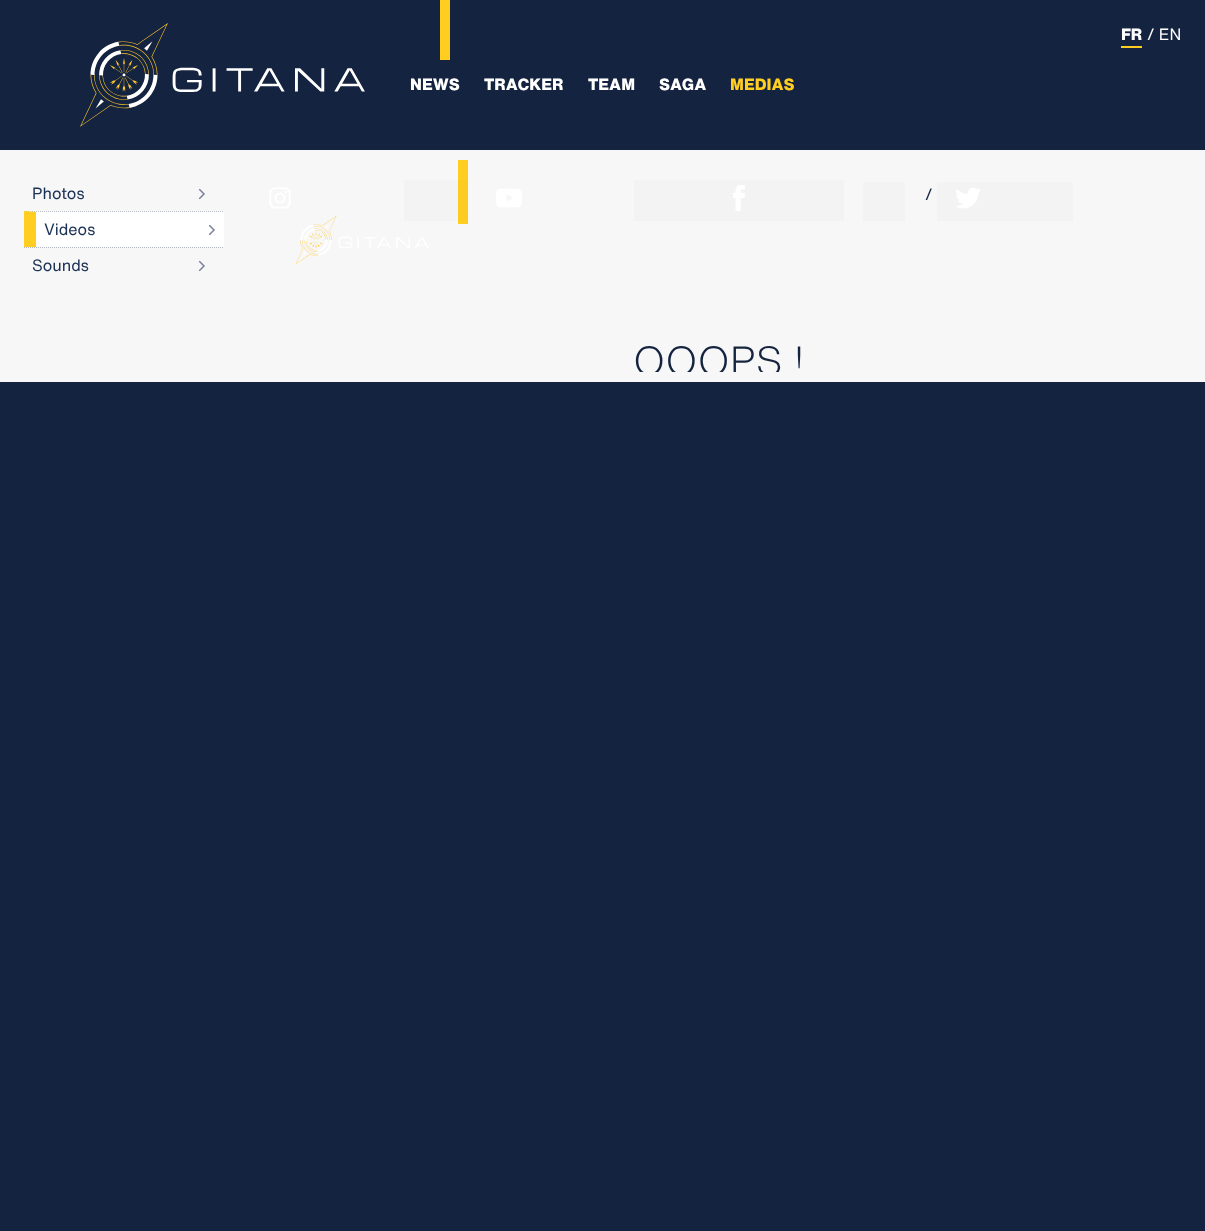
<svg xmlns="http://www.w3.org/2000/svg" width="1205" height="1231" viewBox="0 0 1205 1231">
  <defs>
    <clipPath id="clip1"><rect x="199" y="189" width="10" height="10"/></clipPath>
    <clipPath id="clip2"><rect x="209" y="225" width="10" height="10"/></clipPath>
    <clipPath id="clip3"><rect x="199" y="261" width="10" height="10"/></clipPath>
    <clipPath id="clip4"><rect x="258" y="160" width="922" height="212"/></clipPath>
  </defs>
  <rect width="100%" height="100%" fill="#14233f"/>
  <image x="80" y="23" width="285" height="104" href="img1.png"/>
  <rect x="440" y="0" width="10" height="60" fill="#ffce21"/>
  <text x="1121" y="40" font-family="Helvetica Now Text" font-size="16" font-weight="800" fill="#ffffff">FR</text>
  <rect x="1121" y="46" width="21" height="2" fill="#ffce21"/>
  <text x="1147" y="40" font-family="Helvetica Now Text" font-size="16" fill="#ffffff">/ EN</text>
  <text x="410" y="90" font-family="Helvetica Now Text" font-size="16" font-weight="800" fill="#ffffff">NEWS</text>
  <text x="484" y="90" font-family="Helvetica Now Text" font-size="16" font-weight="800" fill="#ffffff">TRACKER</text>
  <text x="588" y="90" font-family="Helvetica Now Text" font-size="16" font-weight="800" fill="#ffffff">TEAM</text>
  <text x="659" y="90" font-family="Helvetica Now Text" font-size="16" font-weight="800" fill="#ffffff">SAGA</text>
  <text x="730" y="90" font-family="Helvetica Now Text" font-size="16" font-weight="800" fill="#ffce21">MEDIAS</text>
  <rect x="0" y="150" width="1205" height="232" fill="#f7f7f7"/>
  <text x="32" y="199" font-family="Helvetica Now Text" font-size="16" fill="#1b3156">Photos</text>
  <g clip-path="url(#clip1)">
    <path d="M199 189L204 194L199 199" fill="none" stroke="#798297" stroke-width="1.5"/>
  </g>
  <rect x="25" y="211" width="199" height="36" fill="#ffffff"/>
  <path d="M24 211.5H224" fill="none" stroke="#b9bdc5" stroke-dasharray="1 1"/>
  <path d="M24 247V211L36 212V247Z" fill="#ffce21"/>
  <text x="44" y="235" font-family="Helvetica Now Text" font-size="16" fill="#1b3156">Videos</text>
  <g clip-path="url(#clip2)">
    <path d="M209 225L214 230L209 235" fill="none" stroke="#798297" stroke-width="1.5"/>
  </g>
  <path d="M24 247.5H224" fill="none" stroke="#b3b7c0" stroke-dasharray="1 1"/>
  <text x="32" y="271" font-family="Helvetica Now Text" font-size="16" fill="#1b3156">Sounds</text>
  <g clip-path="url(#clip3)">
    <path d="M199 261L204 266L199 271" fill="none" stroke="#798297" stroke-width="1.5"/>
  </g>
  <image x="269" y="187" width="22" height="22" href="img2.png"/>
  <image x="496" y="188" width="26" height="20" href="img3.png"/>
  <rect x="634" y="180" width="210" height="41" fill="#f3f3f3"/>
  <image x="733" y="185" width="12" height="26" href="img4.png"/>
  <rect x="937" y="182" width="136" height="39" fill="#f3f3f3"/>
  <image x="956" y="187" width="25" height="22" href="img5.png"/>
  <rect x="404" y="180" width="54" height="41" fill="#f3f3f3"/>
  <rect x="458" y="160" width="10" height="64" fill="#ffce21"/>
  <rect x="458" y="180" width="10" height="41" fill="#fccc21"/>
  <image x="295" y="216" width="134" height="49" href="img6.png"/>
  <rect x="863" y="182" width="42" height="39" fill="#f3f3f3"/>
  <text x="925" y="200" font-family="Helvetica Now Text" font-size="16" fill="#14233e">/</text>
  <g clip-path="url(#clip4)">
    <text x="633" y="375" font-family="Helvetica Now Text" font-size="40" font-weight="300" fill="#14233e">OOOPS !</text>
  </g>
</svg>
